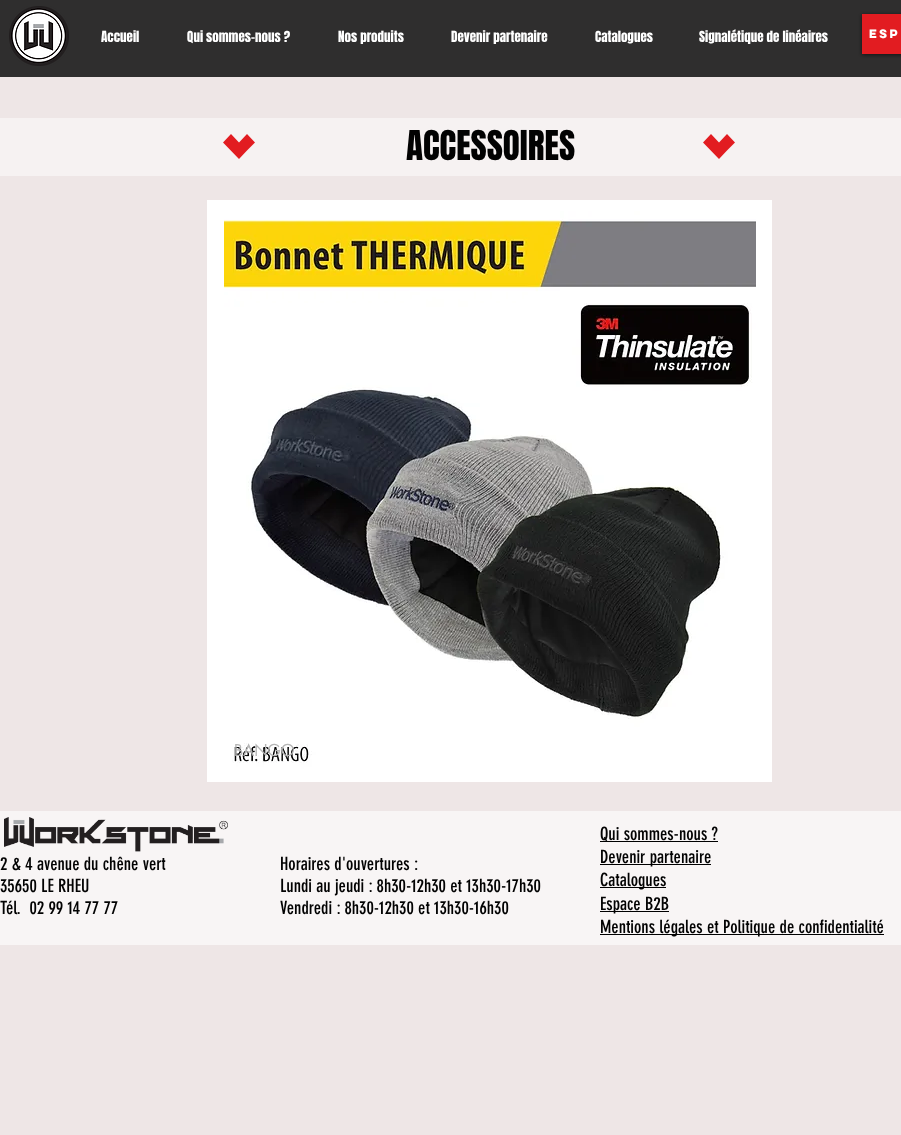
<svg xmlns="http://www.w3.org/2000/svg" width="901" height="1135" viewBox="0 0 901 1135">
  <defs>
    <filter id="blur1" x="-50%" y="-200%" width="200%" height="500%"><feGaussianBlur stdDeviation="2"/></filter>
  </defs>
  <rect width="100%" height="100%" fill="#eee6e6"/>
  <rect x="0" y="0" width="901" height="77" fill="#2f2e2e"/>
  <image x="9" y="6" width="60" height="60" href="img1.png"/>
  <text x="101" y="42" font-family="Anton" font-size="13" fill="#ffffff">Accueil</text>
  <text x="187" y="42" font-family="Anton" font-size="13" fill="#ffffff">Qui sommes-nous ?</text>
  <text x="338" y="42" font-family="Anton" font-size="13" fill="#ffffff">Nos produits</text>
  <text x="451" y="42" font-family="Anton" font-size="13" fill="#ffffff">Devenir partenaire</text>
  <text x="595" y="42" font-family="Anton" font-size="13" fill="#ffffff">Catalogues</text>
  <text x="699" y="42" font-family="Anton" font-size="13" fill="#ffffff">Signalétique de linéaires</text>
  <rect x="862" y="15" width="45" height="40" fill="#000000" fill-opacity="0.6" filter="url(#blur1)"/>
  <rect x="862" y="14" width="39" height="40" fill="#e21c21"/>
  <text x="869" y="38" font-family="'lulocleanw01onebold'" font-size="11" font-weight="bold" fill="#ffffff">ESP</text>
  <rect x="0" y="118" width="901" height="58" fill="#f6f2f2"/>
  <path d="M247 150.5L255 142.5L247 134L239 142.5L231 134L223 142.5L239 159Z" fill="#e21c21"/>
  <text x="406" y="160" font-family="Anton" font-size="35" fill="#020202">ACCESSOIRES</text>
  <path d="M727 150.5L735 142.5L727 134L719 142.5L711 134L703 142.5L719 159Z" fill="#e21c21"/>
  <rect x="207" y="200" width="565" height="582" fill="#ffffff"/>
  <image x="224" y="211" width="532" height="560" href="img2.png"/>
  <text x="234" y="756" font-family="futura" font-size="16" fill="#b5b5b5">BANGO</text>
  <rect x="0" y="811" width="901" height="134" fill="#f8f5f5"/>
  <image x="4" y="817" width="224" height="35" href="img3.png"/>
  <rect x="600" y="841" width="118" height="1" fill="#000000"/>
  <text x="600" y="840" font-family="'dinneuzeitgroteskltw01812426'" font-size="18" fill="#020202">Qui sommes-nous ?</text>
  <text x="0" y="870" font-family="'dinneuzeitgroteskltw01812426'" font-size="18" fill="#020202">2 &amp; 4 avenue du chêne vert</text>
  <text x="0" y="892" font-family="'dinneuzeitgroteskltw01812426'" font-size="18" fill="#020202">35650 LE RHEU</text>
  <text x="0" y="914" font-family="'dinneuzeitgroteskltw01812426'" font-size="18" fill="#020202" xml:space="preserve">Tél.  02 99 14 77 77</text>
  <text x="280" y="870" font-family="'dinneuzeitgroteskltw01812426'" font-size="18" fill="#020202">Horaires d'ouvertures :</text>
  <text x="280" y="892" font-family="'dinneuzeitgroteskltw01812426'" font-size="18" fill="#020202">Lundi au jeudi : 8h30-12h30 et 13h30-17h30</text>
  <text x="280" y="914" font-family="'dinneuzeitgroteskltw01812426'" font-size="18" fill="#020202">Vendredi : 8h30-12h30 et 13h30-16h30</text>
  <rect x="600" y="864" width="111" height="1" fill="#000000"/>
  <text x="600" y="863" font-family="'dinneuzeitgroteskltw01812426'" font-size="18" fill="#020202">Devenir partenaire</text>
  <rect x="600" y="887" width="66" height="1" fill="#000000"/>
  <text x="600" y="886" font-family="'dinneuzeitgroteskltw01812426'" font-size="18" fill="#020202">Catalogues</text>
  <rect x="600" y="911" width="69" height="1" fill="#000000"/>
  <text x="600" y="910" font-family="'dinneuzeitgroteskltw01812426'" font-size="18" fill="#020202">Espace B2B</text>
  <rect x="600" y="934" width="284" height="1" fill="#000000"/>
  <text x="600" y="933" font-family="'dinneuzeitgroteskltw01812426'" font-size="18" fill="#020202">Mentions légales et Politique de confidentialité</text>
</svg>
